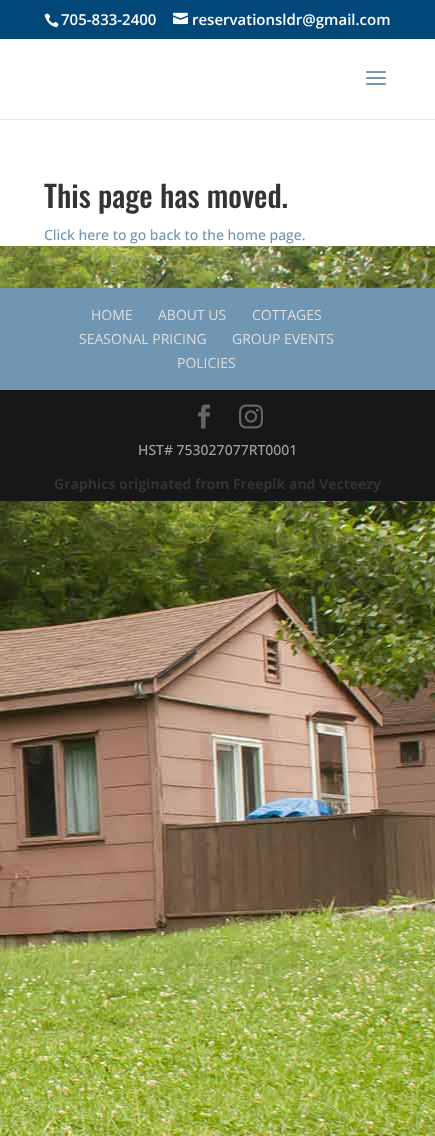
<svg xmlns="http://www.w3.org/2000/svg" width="435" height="1136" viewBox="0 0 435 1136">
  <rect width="100%" height="100%" fill="#ffffff"/>
  <image x="0" y="246" width="435" height="890" href="img1.png"/>
  <rect x="0" y="0" width="435" height="39" fill="#02477a"/>
  <image x="44" y="13" width="15" height="15" href="img2.png"/>
  <text x="61" y="25" font-family="Open Sans" font-size="15" font-weight="600" fill="#ffffff">705-833-2400</text>
  <image x="173" y="12" width="15" height="13" href="img3.png"/>
  <text x="192" y="25" font-family="Open Sans" font-size="15" font-weight="600" fill="#ffffff">reservationsldr@gmail.com</text>
  <rect x="0" y="119" width="435" height="1" fill="#e6e6e6"/>
  <image x="366" y="71" width="20" height="14" href="img4.png"/>
  <text x="44" y="208" font-family="Oswald" font-size="30" font-weight="500" fill="#333333">This page has moved.</text>
  <text x="44" y="240" font-family="Open Sans" font-size="14" font-weight="500" fill="#7096b1">Click here to go back to the home page.</text>
  <rect x="0" y="288" width="435" height="102" fill="#7096b1"/>
  <text x="91" y="320" font-family="Open Sans" font-size="14" fill="#dedede">HOME</text>
  <text x="158" y="320" font-family="Open Sans" font-size="14" fill="#dedede">ABOUT US</text>
  <text x="252" y="320" font-family="Open Sans" font-size="14" fill="#dedede">COTTAGES</text>
  <text x="79" y="344" font-family="Open Sans" font-size="14" fill="#dedede">SEASONAL PRICING</text>
  <text x="232" y="344" font-family="Open Sans" font-size="14" fill="#dedede">GROUP EVENTS</text>
  <text x="177" y="368" font-family="Open Sans" font-size="14" fill="#dedede">POLICIES</text>
  <rect x="0" y="390" width="435" height="111" fill="#171717"/>
  <image x="198" y="404" width="12" height="25" href="img5.png"/>
  <image x="239" y="404" width="24" height="25" href="img6.png"/>
  <text x="138" y="455" font-family="Open Sans" font-size="14" font-weight="500" fill="#a3a3a3">HST# 753027077RT0001</text>
  <text x="54" y="489" font-family="Open Sans" font-size="14" font-weight="bold" fill="#333333">Graphics originated from Freepik and Vecteezy</text>
</svg>
